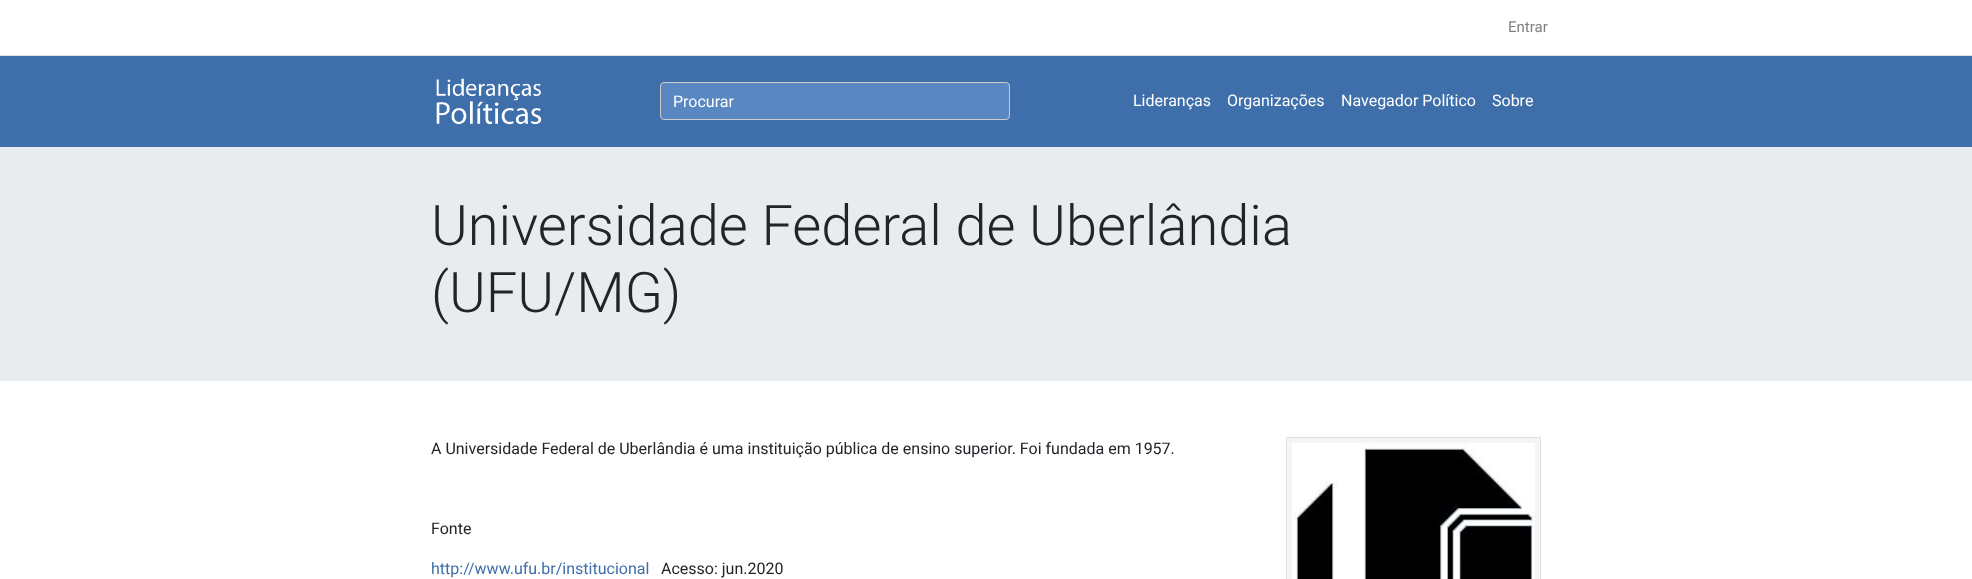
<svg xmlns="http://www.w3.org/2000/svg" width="1972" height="579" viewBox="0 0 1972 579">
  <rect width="100%" height="100%" fill="#ffffff"/>
  <text x="1508" y="32" font-family="Roboto" font-size="15" fill="#808080">Entrar</text>
  <rect x="0" y="56" width="1972" height="91" fill="#3e6faa"/>
  <rect x="0" y="55" width="1972" height="1" fill="#e0e0e0"/>
  <image x="436" y="78" width="106" height="47" href="img1.png"/>
  <rect x="660.5" y="82.5" width="349" height="37" rx="3.5" fill="#5887c1" stroke="#cccccc"/>
  <text x="673" y="107" font-family="Roboto" font-size="16" fill="#ffffff">Procurar</text>
  <text x="1133" y="106" font-family="Roboto" font-size="16" fill="#ffffff">Lideranças</text>
  <text x="1227" y="106" font-family="Roboto" font-size="16" fill="#ffffff">Organizações</text>
  <text x="1341" y="106" font-family="Roboto" font-size="16" fill="#ffffff">Navegador Político</text>
  <text x="1492" y="106" font-family="Roboto" font-size="16" fill="#ffffff">Sobre</text>
  <rect x="0" y="147" width="1972" height="234" fill="#e9ecef"/>
  <text x="431" y="245" font-family="Roboto" font-size="56" font-weight="300" fill="#212529">Universidade Federal de Uberlândia</text>
  <text x="431" y="312" font-family="Roboto" font-size="56" font-weight="300" fill="#212529">(UFU/MG)</text>
  <text x="431" y="454" font-family="Roboto" font-size="16" fill="#212529">A Universidade Federal de Uberlândia é uma instituição pública de ensino superior. Foi fundada em 1957.</text>
  <text x="431" y="534" font-family="Roboto" font-size="16" fill="#212529">Fonte</text>
  <text x="431" y="574" font-family="Roboto" font-size="16" fill="#3e6faa">http://www.ufu.br/institucional</text>
  <text x="661" y="574" font-family="Roboto" font-size="16" fill="#212529">Acesso: jun.2020</text>
  <rect x="1286.5" y="437.5" width="254" height="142" fill="#f5f5f5" stroke="#e0e0e0"/>
  <image x="1292" y="443" width="243" height="136" href="img2.png"/>
</svg>
